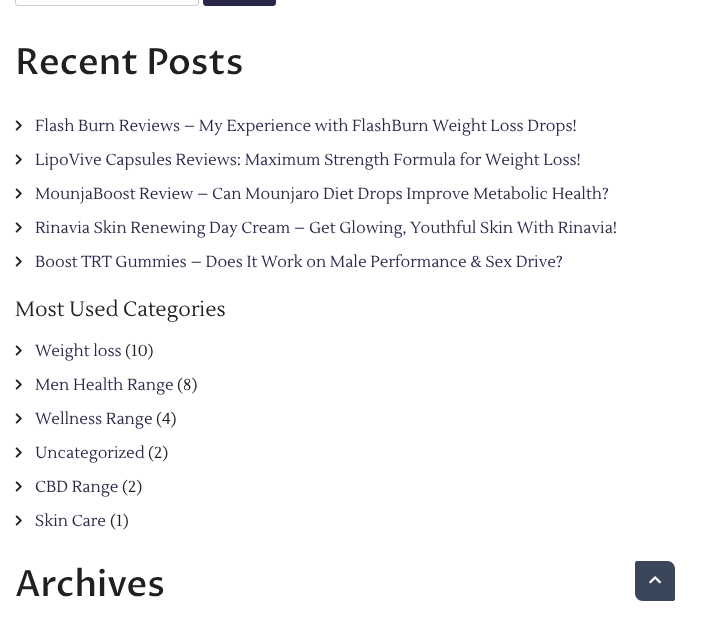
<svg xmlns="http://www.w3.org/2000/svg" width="705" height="631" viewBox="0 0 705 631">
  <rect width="100%" height="100%" fill="#ffffff"/>
  <rect x="15.5" y="-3.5" width="183" height="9" rx="2.5" fill="none" stroke="#cccccc"/>
  <rect x="203.5" y="-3.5" width="72" height="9" rx="2.5" fill="#28284a" stroke="#28284a"/>
  <text x="15" y="74" font-family="Proza Libre" font-size="36" font-weight="500" fill="#202020">Recent Posts</text>
  <image x="15" y="120" width="7" height="11" href="img1.png"/>
  <text x="35" y="131" font-family="Lustria" font-size="16" fill="#28284a">Flash Burn Reviews – My Experience with FlashBurn Weight Loss Drops!</text>
  <image x="15" y="154" width="7" height="11" href="img1.png"/>
  <text x="35" y="165" font-family="Lustria" font-size="16" fill="#28284a">LipoVive Capsules Reviews: Maximum Strength Formula for Weight Loss!</text>
  <image x="15" y="188" width="7" height="11" href="img1.png"/>
  <text x="35" y="199" font-family="Lustria" font-size="16" fill="#28284a">MounjaBoost Review – Can Mounjaro Diet Drops Improve Metabolic Health?</text>
  <image x="15" y="222" width="7" height="11" href="img1.png"/>
  <text x="35" y="233" font-family="Lustria" font-size="16" fill="#28284a">Rinavia Skin Renewing Day Cream – Get Glowing, Youthful Skin With Rinavia!</text>
  <image x="15" y="256" width="7" height="11" href="img1.png"/>
  <text x="35" y="267" font-family="Lustria" font-size="16" fill="#28284a">Boost TRT Gummies – Does It Work on Male Performance &amp; Sex Drive?</text>
  <text x="15" y="316" font-family="Lustria" font-size="20.75" fill="#202020">Most Used Categories</text>
  <image x="15" y="345" width="7" height="11" href="img1.png"/>
  <text x="35" y="356" font-family="Lustria" font-size="16" fill="#28284a">Weight loss</text>
  <text x="125" y="356" font-family="Lustria" font-size="16" fill="#202020">(10)</text>
  <image x="15" y="379" width="7" height="11" href="img1.png"/>
  <text x="35" y="390" font-family="Lustria" font-size="16" fill="#28284a">Men Health Range</text>
  <text x="177" y="390" font-family="Lustria" font-size="16" fill="#202020">(8)</text>
  <image x="15" y="413" width="7" height="11" href="img1.png"/>
  <text x="35" y="424" font-family="Lustria" font-size="16" fill="#28284a">Wellness Range</text>
  <text x="156" y="424" font-family="Lustria" font-size="16" fill="#202020">(4)</text>
  <image x="15" y="447" width="7" height="11" href="img1.png"/>
  <text x="35" y="458" font-family="Lustria" font-size="16" fill="#28284a">Uncategorized</text>
  <text x="148" y="458" font-family="Lustria" font-size="16" fill="#202020">(2)</text>
  <image x="15" y="481" width="7" height="11" href="img1.png"/>
  <text x="35" y="492" font-family="Lustria" font-size="16" fill="#28284a">CBD Range</text>
  <text x="122" y="492" font-family="Lustria" font-size="16" fill="#202020">(2)</text>
  <image x="15" y="515" width="7" height="11" href="img1.png"/>
  <text x="35" y="526" font-family="Lustria" font-size="16" fill="#28284a">Skin Care</text>
  <text x="110" y="526" font-family="Lustria" font-size="16" fill="#202020">(1)</text>
  <text x="15" y="596" font-family="Proza Libre" font-size="36" font-weight="500" fill="#202020">Archives</text>
  <path d="M637 561H667C671.5 561 675 564.5 675 569V599C675 600 674 601 673 601H643C638.5 601 635 597.5 635 593V563C635 562 636 561 637 561Z" fill="#3a465c"/>
  <image x="649" y="576" width="12" height="8" href="img2.png"/>
</svg>
